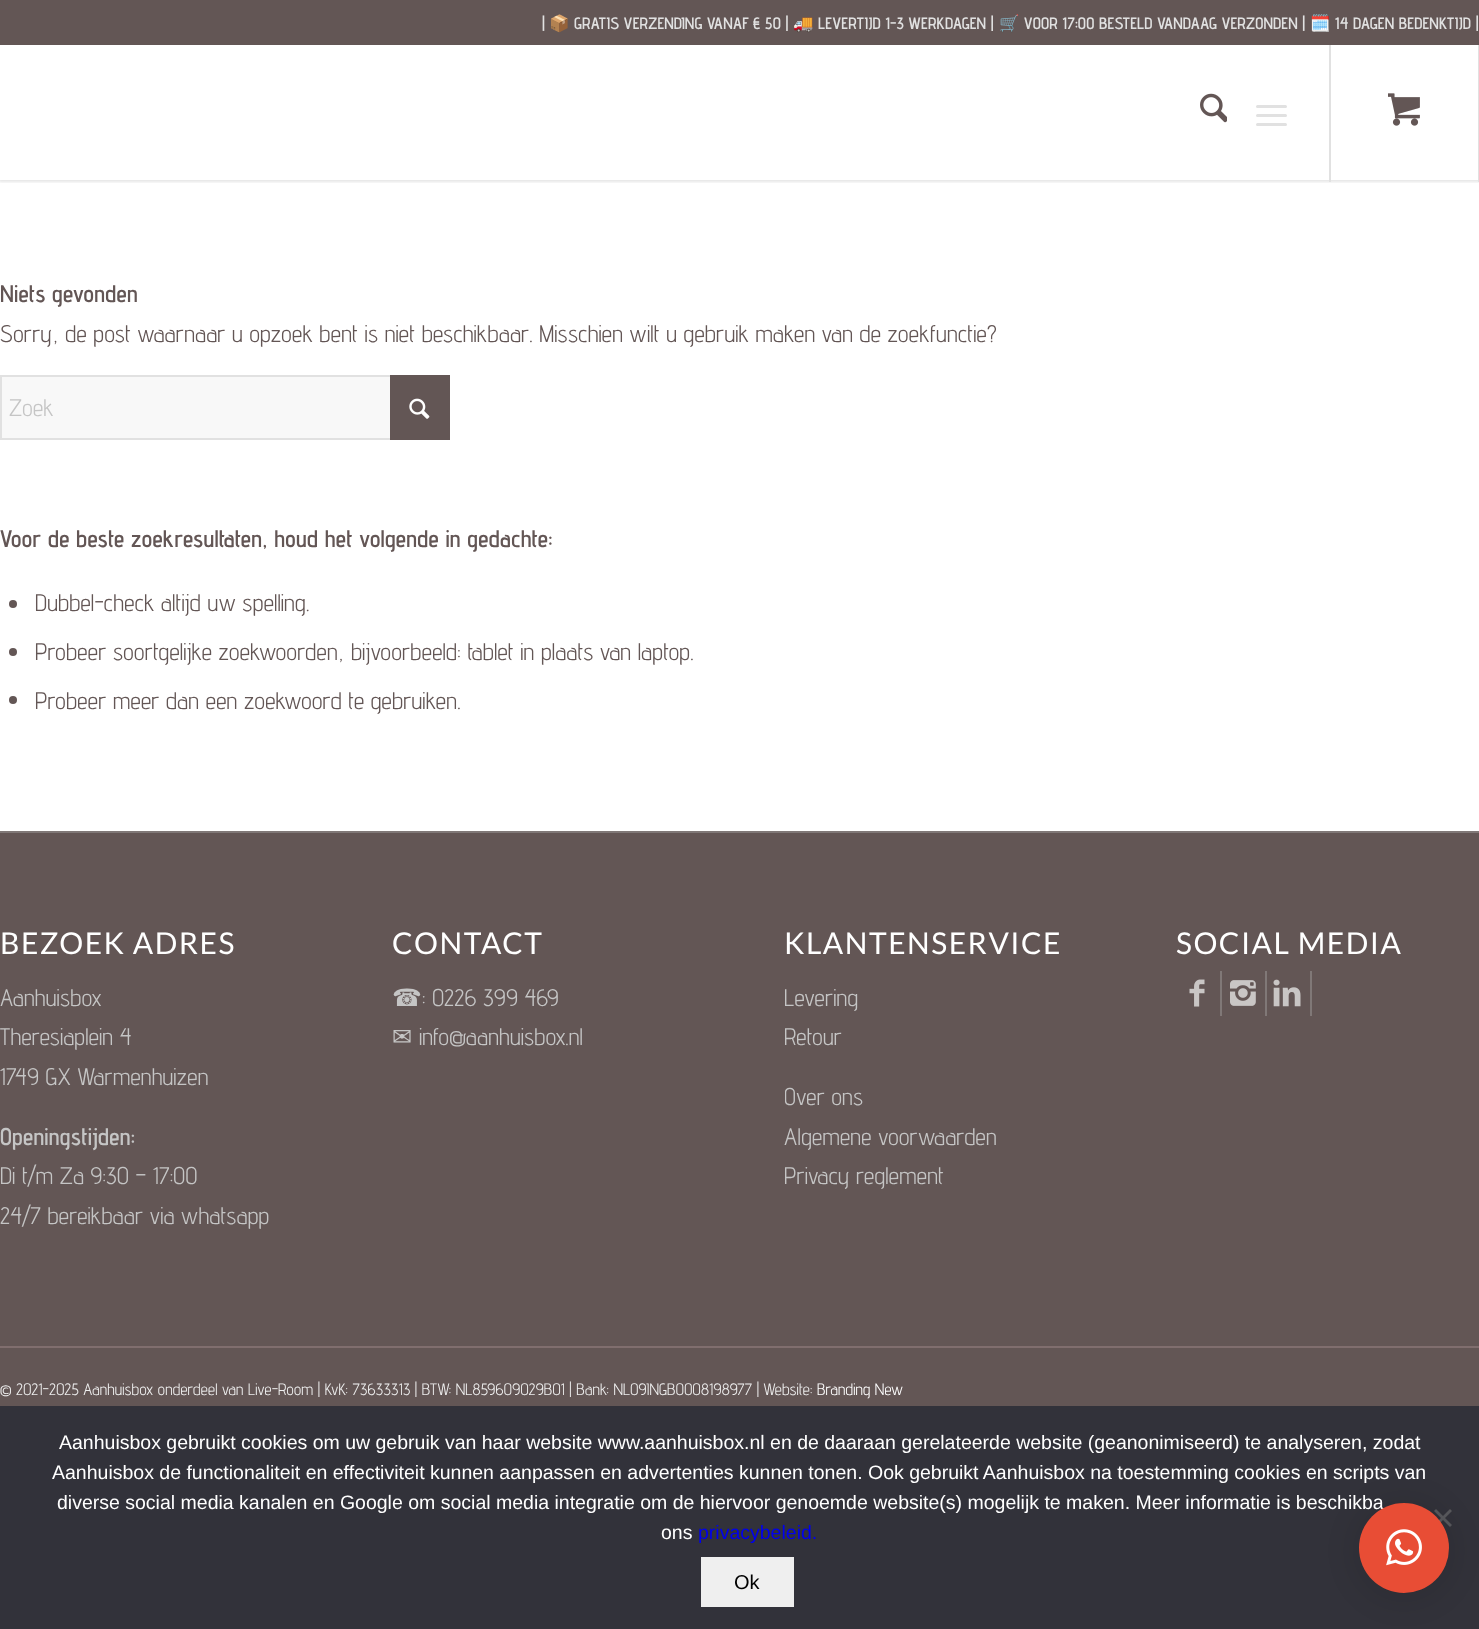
<svg xmlns="http://www.w3.org/2000/svg" width="1479" height="1629" viewBox="0 0 1479 1629">
  <defs>
    <clipPath id="clip1"><rect x="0" y="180" width="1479" height="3"/></clipPath>
    <filter id="blur1" x="-50%" y="-200%" width="200%" height="500%"><feGaussianBlur stdDeviation="1.5"/></filter>
    <clipPath id="clip2"><rect x="785" y="900" width="303" height="318"/></clipPath>
    <filter id="blur2" x="-50%" y="-200%" width="200%" height="500%"><feGaussianBlur stdDeviation="24"/></filter>
  </defs>
  <rect width="100%" height="100%" fill="#ffffff"/>
  <g clip-path="url(#clip1)">
    <rect x="-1" y="-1" width="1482" height="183" fill="#000000" fill-opacity="0.1" filter="url(#blur1)"/>
  </g>
  <rect x="0" y="0" width="1479" height="45" fill="#635655"/>
  <text x="542" y="29" font-family="Advent Pro" font-size="16.5" font-weight="600" fill="#e1e1e1">|</text>
  <text x="549" y="29" font-family="Noto Color Emoji" font-size="16.5" font-weight="bold" fill="#e1e1e1">📦</text>
  <text x="574" y="29" font-family="Advent Pro" font-size="16.5" font-weight="600" fill="#e1e1e1">GRATIS VERZENDING VANAF € 50 |</text>
  <text x="793" y="29" font-family="Noto Color Emoji" font-size="16.5" font-weight="bold" fill="#e1e1e1">🚚</text>
  <text x="818" y="29" font-family="Advent Pro" font-size="16.5" font-weight="600" fill="#e1e1e1">LEVERTIJD 1-3 WERKDAGEN |</text>
  <text x="999" y="29" font-family="Noto Color Emoji" font-size="16.5" font-weight="bold" fill="#e1e1e1">🛒</text>
  <text x="1024" y="29" font-family="Advent Pro" font-size="16.5" font-weight="600" fill="#e1e1e1">VOOR 17:00 BESTELD VANDAAG VERZONDEN |</text>
  <text x="1310" y="29" font-family="Noto Color Emoji" font-size="16.5" font-weight="bold" fill="#e1e1e1">🗓</text>
  <text x="1335" y="29" font-family="Advent Pro" font-size="16.5" font-weight="600" fill="#e1e1e1">14 DAGEN BEDENKTIJD |</text>
  <image x="1200" y="93" width="27" height="30" href="img1.png"/>
  <rect x="1256" y="114" width="31" height="3" rx="1.5" fill="#e1e1e1"/>
  <rect x="1256" y="105" width="31" height="3" rx="1.5" fill="#e1e1e1"/>
  <rect x="1256" y="123" width="31" height="3" rx="1.5" fill="#e1e1e1"/>
  <rect x="1478" y="45" width="1" height="137" fill="#e1e1e1"/>
  <rect x="1329" y="45" width="2" height="137" fill="#e1e1e1"/>
  <image x="1388" y="93" width="32" height="33" href="img2.png"/>
  <text x="0" y="302" font-family="Advent Pro" font-size="24" font-weight="600" fill="#635655">Niets gevonden</text>
  <text x="0" y="342" font-family="Advent Pro" font-size="24" fill="#635655">Sorry, de post waarnaar u opzoek bent is niet beschikbaar. Misschien wilt u gebruik maken van de zoekfunctie?</text>
  <rect x="2" y="377" width="388" height="61" fill="#f8f8f8"/>
  <rect x="1" y="376" width="448" height="63" fill="none" stroke="#e1e1e1" stroke-width="2"/>
  <rect x="390" y="375" width="60" height="65" fill="#635655"/>
  <text x="9" y="416" font-family="Advent Pro" font-size="24" fill="#c5c5c5">Zoek</text>
  <image x="409" y="398" width="21" height="21" href="img3.png"/>
  <text x="0" y="547" font-family="Advent Pro" font-size="24" font-weight="600" fill="#635655">Voor de beste zoekresultaten, houd het volgende in gedachte:</text>
  <circle cx="13" cy="604" r="4" fill="#635655"/>
  <text x="35" y="611" font-family="Advent Pro" font-size="24" fill="#635655">Dubbel-check altijd uw spelling.</text>
  <circle cx="13" cy="652" r="4" fill="#635655"/>
  <text x="35" y="660" font-family="Advent Pro" font-size="24" fill="#635655">Probeer soortgelijke zoekwoorden, bijvoorbeeld: tablet in plaats van laptop.</text>
  <circle cx="13" cy="700" r="4" fill="#635655"/>
  <text x="35" y="709" font-family="Advent Pro" font-size="24" fill="#635655">Probeer meer dan een zoekwoord te gebruiken.</text>
  <rect x="0" y="833" width="1479" height="513" fill="#635655"/>
  <rect x="0" y="831" width="1479" height="2" fill="#807877"/>
  <text x="0" y="954" font-family="Lato" font-size="30" letter-spacing="1.5" fill="#ffffff">BEZOEK ADRES</text>
  <text x="0" y="1006" font-family="Advent Pro" font-size="24" fill="#c5c5c5">Aanhuisbox</text>
  <text x="0" y="1045" font-family="Advent Pro" font-size="24" fill="#c5c5c5">Theresiaplein 4</text>
  <text x="0" y="1085" font-family="Advent Pro" font-size="24" fill="#c5c5c5">1749 GX Warmenhuizen</text>
  <text x="0" y="1145" font-family="Advent Pro" font-size="24" font-weight="600" fill="#c5c5c5">Openingstijden:</text>
  <text x="0" y="1184" font-family="Advent Pro" font-size="24" fill="#c5c5c5">Di t/m Za 9:30 – 17:00</text>
  <text x="0" y="1224" font-family="Advent Pro" font-size="24" fill="#c5c5c5">24/7 bereikbaar via whatsapp</text>
  <text x="392" y="954" font-family="Lato" font-size="30" letter-spacing="1.5" fill="#ffffff">CONTACT</text>
  <text x="392" y="1006" font-family="DejaVu Sans" font-size="24" fill="#c5c5c5">☎</text>
  <text x="422" y="1006" font-family="Advent Pro" font-size="24" fill="#c5c5c5">: 0226 399 469</text>
  <text x="392" y="1045" font-family="DejaVu Sans" font-size="24" fill="#c5c5c5">✉</text>
  <text x="419" y="1045" font-family="Advent Pro" font-size="24" fill="#c5c5c5">info@aanhuisbox.nl</text>
  <text x="784" y="954" font-family="Lato" font-size="30" letter-spacing="1.5" fill="#ffffff">KLANTENSERVICE</text>
  <g clip-path="url(#clip2)">
    <text x="784" y="1006" font-family="Advent Pro" font-size="24" fill="#c5c5c5">Levering</text>
    <text x="784" y="1045" font-family="Advent Pro" font-size="24" fill="#c5c5c5">Retour</text>
    <text x="784" y="1105" font-family="Advent Pro" font-size="24" fill="#c5c5c5">Over ons</text>
  </g>
  <text x="784" y="1145" font-family="Advent Pro" font-size="24" fill="#c5c5c5">Algemene voorwaarden</text>
  <g clip-path="url(#clip2)">
    <text x="784" y="1184" font-family="Advent Pro" font-size="24" fill="#c5c5c5">Privacy reglement</text>
  </g>
  <text x="1176" y="954" font-family="Lato" font-size="30" letter-spacing="1.5" fill="#ffffff">SOCIAL MEDIA</text>
  <rect x="1220" y="971" width="2" height="45" fill="#807877"/>
  <image x="1189" y="979" width="16" height="28" href="img4.png"/>
  <rect x="1265" y="971" width="2" height="45" fill="#807877"/>
  <image x="1230" y="980" width="26" height="26" href="img5.png"/>
  <rect x="1310" y="971" width="2" height="45" fill="#807877"/>
  <image x="1273" y="979" width="28" height="28" href="img6.png"/>
  <rect x="0" y="1348" width="1479" height="58" fill="#635655"/>
  <rect x="0" y="1346" width="1479" height="2" fill="#806e6e"/>
  <text x="0" y="1395" font-family="Advent Pro" font-size="16.5" fill="#eeeeee">© 2021-2025 Aanhuisbox onderdeel van Live-Room | KvK: 73633313 | BTW: NL859609029B01 | Bank: NL09INGB0008198977 | Website:</text>
  <text x="817" y="1395" font-family="Advent Pro" font-size="16.5" fill="#ffffff">Branding New</text>
  <rect x="0" y="1406" width="1479" height="223" fill="#32323a"/>
  <path d="M1450 1509L1452 1511L1436 1527L1434 1525Z" fill="#59595d"/>
  <path d="M1434 1511L1436 1509L1452 1525L1450 1527Z" fill="#59595d"/>
  <rect x="1359" y="1506" width="90" height="90" rx="45" fill="#000000" fill-opacity="0.16" filter="url(#blur2)"/>
  <text x="57" y="1509" font-family="Liberation Sans" font-size="19.5" fill="#ffffff">diverse social media kanalen en Google om social media integratie om de hiervoor genoemde website(s) mogelijk te maken. Meer informatie is beschikba</text>
  <circle cx="1404" cy="1548" r="45" fill="#e84d35"/>
  <image x="1386" y="1529" width="36" height="37" href="img7.png"/>
  <text x="59" y="1449" font-family="Liberation Sans" font-size="19.5" fill="#ffffff">Aanhuisbox gebruikt cookies om uw gebruik van haar website www.aanhuisbox.nl en de daaraan gerelateerde website (geanonimiseerd) te analyseren, zodat</text>
  <text x="52" y="1479" font-family="Liberation Sans" font-size="19.5" fill="#ffffff">Aanhuisbox de functionaliteit en effectiviteit kunnen aanpassen en advertenties kunnen tonen. Ook gebruikt Aanhuisbox na toestemming cookies en scripts van</text>
  <text x="661" y="1539" font-family="Liberation Sans" font-size="19.5" fill="#ffffff">ons</text>
  <text x="698" y="1539" font-family="Liberation Sans" font-size="19.5" fill="#0000ee">privacybeleid.</text>
  <rect x="701" y="1557" width="93" height="50" fill="#efefef"/>
  <text x="734" y="1589" font-family="Liberation Sans" font-size="20" fill="#000000">Ok</text>
</svg>
